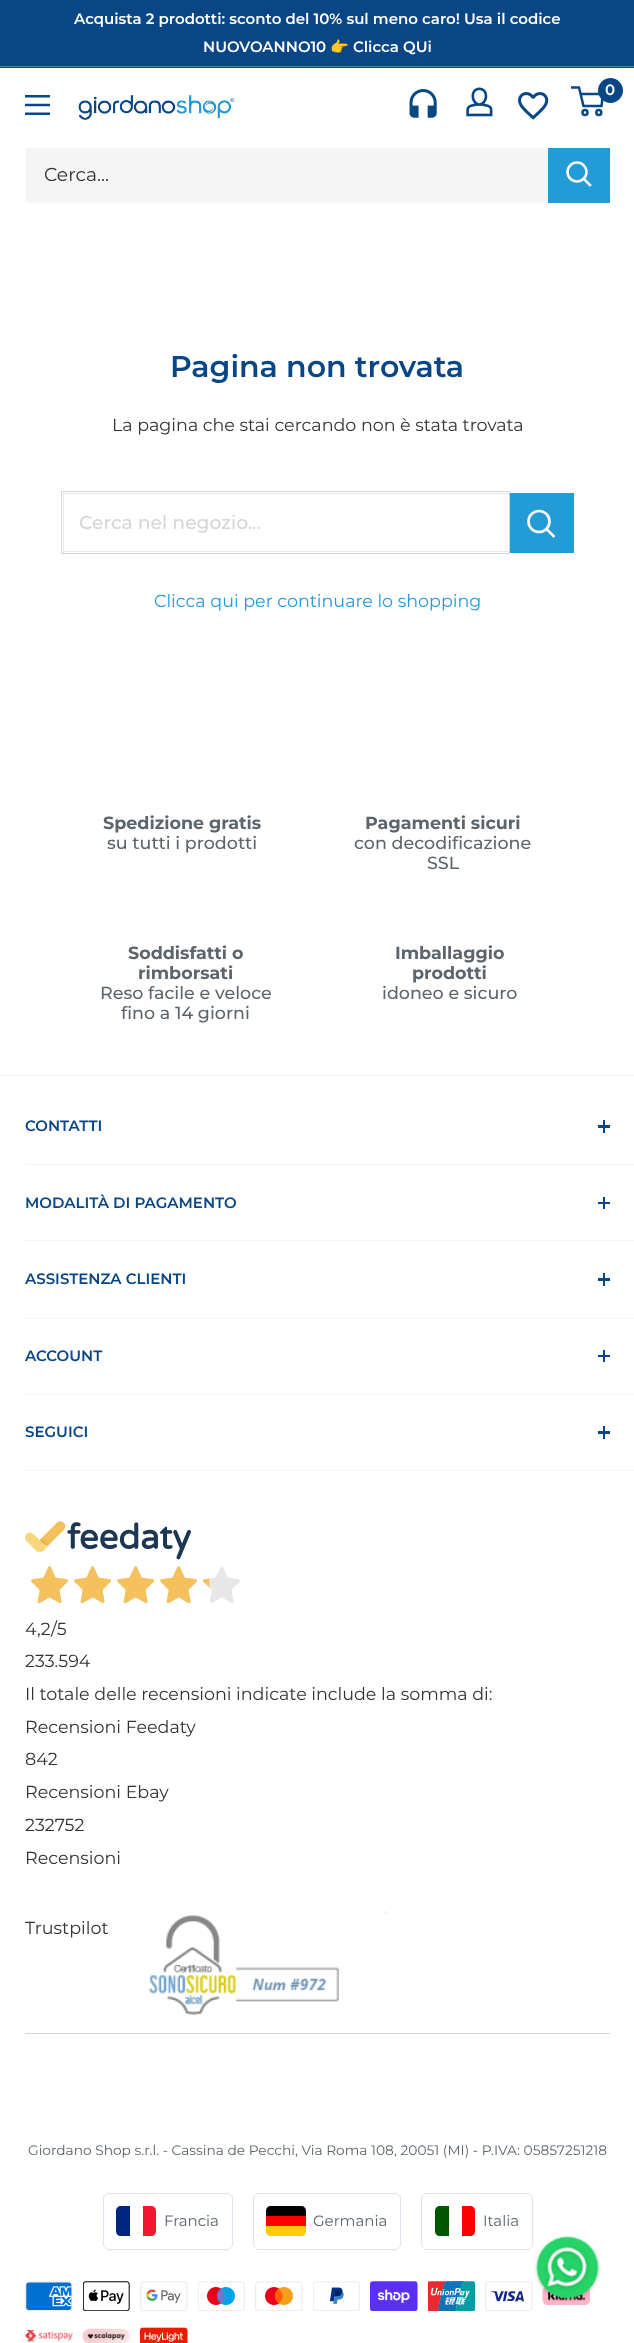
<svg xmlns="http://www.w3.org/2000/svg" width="634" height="2343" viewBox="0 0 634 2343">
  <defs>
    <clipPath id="clip1"><rect x="25" y="148" width="585" height="55"/></clipPath>
  </defs>
  <rect width="100%" height="100%" fill="#ffffff"/>
  <rect x="0" y="0" width="634" height="68" fill="#084685"/>
  <rect x="0" y="66" width="634" height="1" fill="#527eaa"/>
  <text x="74" y="24" font-family="Montserrat" font-size="15" font-weight="600" fill="#ffffff">Acquista 2 prodotti: sconto del 10% sul meno caro! Usa il codice</text>
  <text x="203" y="52" font-family="Montserrat" font-size="15" font-weight="600" fill="#ffffff">NUOVOANNO10</text>
  <text x="330" y="52" font-family="Noto Color Emoji" font-size="15" font-weight="bold" fill="#ffffff">👉</text>
  <text x="353" y="52" font-family="Montserrat" font-size="15" font-weight="600" fill="#ffffff">Clicca QUi</text>
  <image x="409" y="89" width="28" height="29" href="img1.png"/>
  <image x="466" y="87" width="27" height="30" href="img2.png"/>
  <image x="518" y="92" width="31" height="28" href="img3.png"/>
  <circle cx="585" cy="112.5" r="2.5" fill="none" stroke="#084685" stroke-width="2.5"/>
  <circle cx="598.8" cy="112.5" r="2.5" fill="none" stroke="#084685" stroke-width="2.5"/>
  <path d="M580.5 94H603L601.5 106H583.5L579 87.5H571" fill="none" stroke="#084685" stroke-width="2.5"/>
  <circle cx="610.5" cy="90.5" r="12.5" fill="#084685"/>
  <text x="605" y="95" font-family="Montserrat" font-size="15" font-weight="600" fill="#ffffff">0</text>
  <image x="25" y="95" width="25" height="20" href="img4.png"/>
  <image x="77" y="95" width="158" height="25" href="img5.png"/>
  <rect x="25" y="148" width="523" height="53" fill="#f5f5f5"/>
  <g clip-path="url(#clip1)">
    <path d="M-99 24H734V326H-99ZM24 146H609V201H24Z" fill="#f8f8f8" fill-rule="evenodd"/>
    <path d="M-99 24H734V326H-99ZM26 149H611V204H26Z" fill="#ffffff" fill-opacity="0.3" fill-rule="evenodd"/>
  </g>
  <text x="44" y="181" font-family="Montserrat" font-size="18.75" fill="#333333">Cerca...</text>
  <rect x="548" y="148" width="62" height="55" fill="#239bd7"/>
  <path d="M590 185L584 179" fill="none" stroke="#ffffff" stroke-width="2.5" stroke-linecap="square"/>
  <circle cx="577" cy="172" r="9.5" fill="none" stroke="#ffffff" stroke-width="2.5"/>
  <text x="170" y="377" font-family="Montserrat" font-size="30" font-weight="600" fill="#084685">Pagina non trovata</text>
  <text x="112" y="431" font-family="Montserrat" font-size="17.5" fill="#333333">La pagina che stai cercando non è stata trovata</text>
  <rect x="61.5" y="491.5" width="448" height="62" fill="none" stroke="#d6d6d6"/>
  <rect x="63" y="493" width="446" height="1" fill="#e8e8e8"/>
  <rect x="63" y="551" width="446" height="1" fill="#e8e8e8"/>
  <rect x="63" y="493" width="1" height="60" fill="#e8e8e8"/>
  <text x="79" y="529" font-family="Montserrat" font-size="18.75" font-weight="500" fill="#d6d6d6">Cerca nel negozio...</text>
  <rect x="510" y="493" width="64" height="60" fill="#239bd7"/>
  <path d="M553.5 536L546.5 529" fill="none" stroke="#f5f5f5" stroke-width="2.7" stroke-linecap="square"/>
  <circle cx="539" cy="521.5" r="10.5" fill="none" stroke="#f5f5f5" stroke-width="2.7"/>
  <text x="154" y="607" font-family="Montserrat" font-size="17.5" fill="#239bd7">Clicca qui per continuare lo shopping</text>
  <text x="103" y="829" font-family="Montserrat" font-size="17.5" font-weight="bold" fill="#5c646c">Spedizione gratis</text>
  <text x="107" y="849" font-family="Montserrat" font-size="17.5" font-weight="500" fill="#5c646c">su tutti i prodotti</text>
  <text x="365" y="829" font-family="Montserrat" font-size="17.5" font-weight="bold" fill="#5c646c">Pagamenti sicuri</text>
  <text x="354" y="849" font-family="Montserrat" font-size="17.5" font-weight="500" fill="#5c646c">con decodificazione</text>
  <text x="427" y="869" font-family="Montserrat" font-size="17.5" font-weight="500" fill="#5c646c">SSL</text>
  <text x="128" y="959" font-family="Montserrat" font-size="17.5" font-weight="bold" fill="#5c646c">Soddisfatti o</text>
  <text x="138" y="979" font-family="Montserrat" font-size="17.5" font-weight="bold" fill="#5c646c">rimborsati</text>
  <text x="100" y="999" font-family="Montserrat" font-size="17.5" font-weight="500" fill="#5c646c">Reso facile e veloce</text>
  <text x="121" y="1019" font-family="Montserrat" font-size="17.5" font-weight="500" fill="#5c646c">fino a 14 giorni</text>
  <text x="395" y="959" font-family="Montserrat" font-size="17.5" font-weight="bold" fill="#5c646c">Imballaggio</text>
  <text x="412" y="979" font-family="Montserrat" font-size="17.5" font-weight="bold" fill="#5c646c">prodotti</text>
  <text x="382" y="999" font-family="Montserrat" font-size="17.5" font-weight="500" fill="#5c646c">idoneo e sicuro</text>
  <rect x="0" y="1075" width="634" height="1" fill="#f5f5f5"/>
  <rect x="25" y="1164" width="609" height="1" fill="#f5f5f5"/>
  <text x="25" y="1131" font-family="Montserrat" font-size="15" font-weight="600" fill="#084685">CONTATTI</text>
  <rect x="603" y="1120" width="2" height="13" fill="#084685"/>
  <rect x="598" y="1125" width="12" height="3" fill="#084685"/>
  <rect x="25" y="1240" width="609" height="1" fill="#f5f5f5"/>
  <text x="25" y="1208" font-family="Montserrat" font-size="15" font-weight="600" fill="#084685">MODALITÀ DI PAGAMENTO</text>
  <rect x="603" y="1197" width="2" height="12" fill="#084685"/>
  <rect x="598" y="1202" width="12" height="2" fill="#084685"/>
  <rect x="25" y="1318" width="609" height="1" fill="#f5f5f5"/>
  <text x="25" y="1284" font-family="Montserrat" font-size="15" font-weight="600" fill="#084685">ASSISTENZA CLIENTI</text>
  <rect x="603" y="1273" width="2" height="13" fill="#084685"/>
  <rect x="598" y="1278" width="12" height="3" fill="#084685"/>
  <rect x="25" y="1394" width="609" height="1" fill="#f5f5f5"/>
  <text x="25" y="1361" font-family="Montserrat" font-size="15" font-weight="600" fill="#084685">ACCOUNT</text>
  <rect x="603" y="1350" width="2" height="12" fill="#084685"/>
  <rect x="598" y="1355" width="12" height="2" fill="#084685"/>
  <rect x="25" y="1470" width="609" height="1" fill="#f5f5f5"/>
  <text x="25" y="1437" font-family="Montserrat" font-size="15" font-weight="600" fill="#084685">SEGUICI</text>
  <rect x="603" y="1426" width="2" height="13" fill="#084685"/>
  <rect x="598" y="1431" width="12" height="3" fill="#084685"/>
  <image x="25" y="1521" width="166" height="39" href="img6.png"/>
  <image x="31" y="1566" width="209" height="38" href="img7.png"/>
  <text x="25" y="1635" font-family="Montserrat" font-size="17.5" fill="#333333">4,2/5</text>
  <text x="25" y="1667" font-family="Montserrat" font-size="17.5" fill="#333333">233.594</text>
  <text x="25" y="1700" font-family="Montserrat" font-size="17.5" fill="#333333">Il totale delle recensioni indicate include la somma di:</text>
  <text x="25" y="1733" font-family="Montserrat" font-size="17.5" fill="#333333">Recensioni Feedaty</text>
  <text x="25" y="1765" font-family="Montserrat" font-size="17.5" fill="#333333">842</text>
  <text x="25" y="1798" font-family="Montserrat" font-size="17.5" fill="#333333">Recensioni Ebay</text>
  <text x="25" y="1831" font-family="Montserrat" font-size="17.5" fill="#333333">232752</text>
  <text x="25" y="1864" font-family="Montserrat" font-size="17.5" fill="#333333">Recensioni</text>
  <rect x="384" y="1911" width="3" height="3" fill="#f5f5f5"/>
  <text x="25" y="1934" font-family="Montserrat" font-size="17.5" fill="#333333">Trustpilot</text>
  <image x="148" y="1915" width="191" height="101" href="img8.png"/>
  <rect x="25" y="2033" width="585" height="1" fill="#d6d6d6"/>
  <text x="28" y="2155" font-family="Montserrat" font-size="13.75" fill="#5c646c">Giordano Shop s.r.l. - Cassina de Pecchi, Via Roma 108, 20051 (MI) - P.IVA: 05857251218</text>
  <rect x="103.5" y="2193.5" width="129" height="56" rx="5.5" fill="none" stroke="#e0e0ee"/>
  <path d="M121 2206H130V2236H121C118 2236 116 2234 116 2231V2211C116 2208 118 2206 121 2206Z" fill="#00267f"/>
  <path d="M143 2206H151C154 2206 156 2208 156 2211V2231C156 2234 154 2236 151 2236H143Z" fill="#f31830"/>
  <text x="164" y="2226" font-family="Montserrat" font-size="15" fill="#5c646c">Francia</text>
  <rect x="253.5" y="2193.5" width="147" height="56" rx="5.5" fill="none" stroke="#e0e0ee"/>
  <path d="M266 2226H306V2231C306 2234 304 2236 301 2236H271C268 2236 266 2234 266 2231Z" fill="#ffcc00"/>
  <path d="M271 2206H301C304 2206 306 2208 306 2211V2216H266V2211C266 2208 268 2206 271 2206Z" fill="#000000"/>
  <rect x="266" y="2216" width="40" height="10" fill="#ff0000"/>
  <text x="313" y="2226" font-family="Montserrat" font-size="15" fill="#5c646c">Germania</text>
  <rect x="421.5" y="2193.5" width="111" height="56" rx="5.5" fill="none" stroke="#e0e0ee"/>
  <path d="M440 2206H449V2236H440C437 2236 435 2234 435 2231V2211C435 2208 437 2206 440 2206Z" fill="#005700"/>
  <path d="M462 2206H470C473 2206 475 2208 475 2211V2231C475 2234 473 2236 470 2236H462Z" fill="#fc0000"/>
  <text x="483" y="2226" font-family="Montserrat" font-size="15" fill="#5c646c">Italia</text>
  <image x="25" y="2281" width="48" height="30" href="img9.png"/>
  <image x="83" y="2281" width="47" height="30" href="img10.png"/>
  <image x="140" y="2281" width="48" height="30" href="img11.png"/>
  <image x="198" y="2281" width="47" height="30" href="img12.png"/>
  <image x="255" y="2281" width="48" height="30" href="img13.png"/>
  <image x="313" y="2281" width="47" height="30" href="img14.png"/>
  <image x="370" y="2281" width="48" height="30" href="img15.png"/>
  <image x="428" y="2281" width="47" height="30" href="img16.png"/>
  <image x="485" y="2281" width="48" height="30" href="img17.png"/>
  <image x="542" y="2286" width="48" height="19" href="img18.png"/>
  <image x="25" y="2330" width="48" height="12" href="img19.png"/>
  <image x="82" y="2328" width="48" height="15" href="img20.png"/>
  <image x="140" y="2327" width="48" height="16" href="img21.png"/>
  <image x="534" y="2236" width="67" height="66" href="img22.png"/>
</svg>
